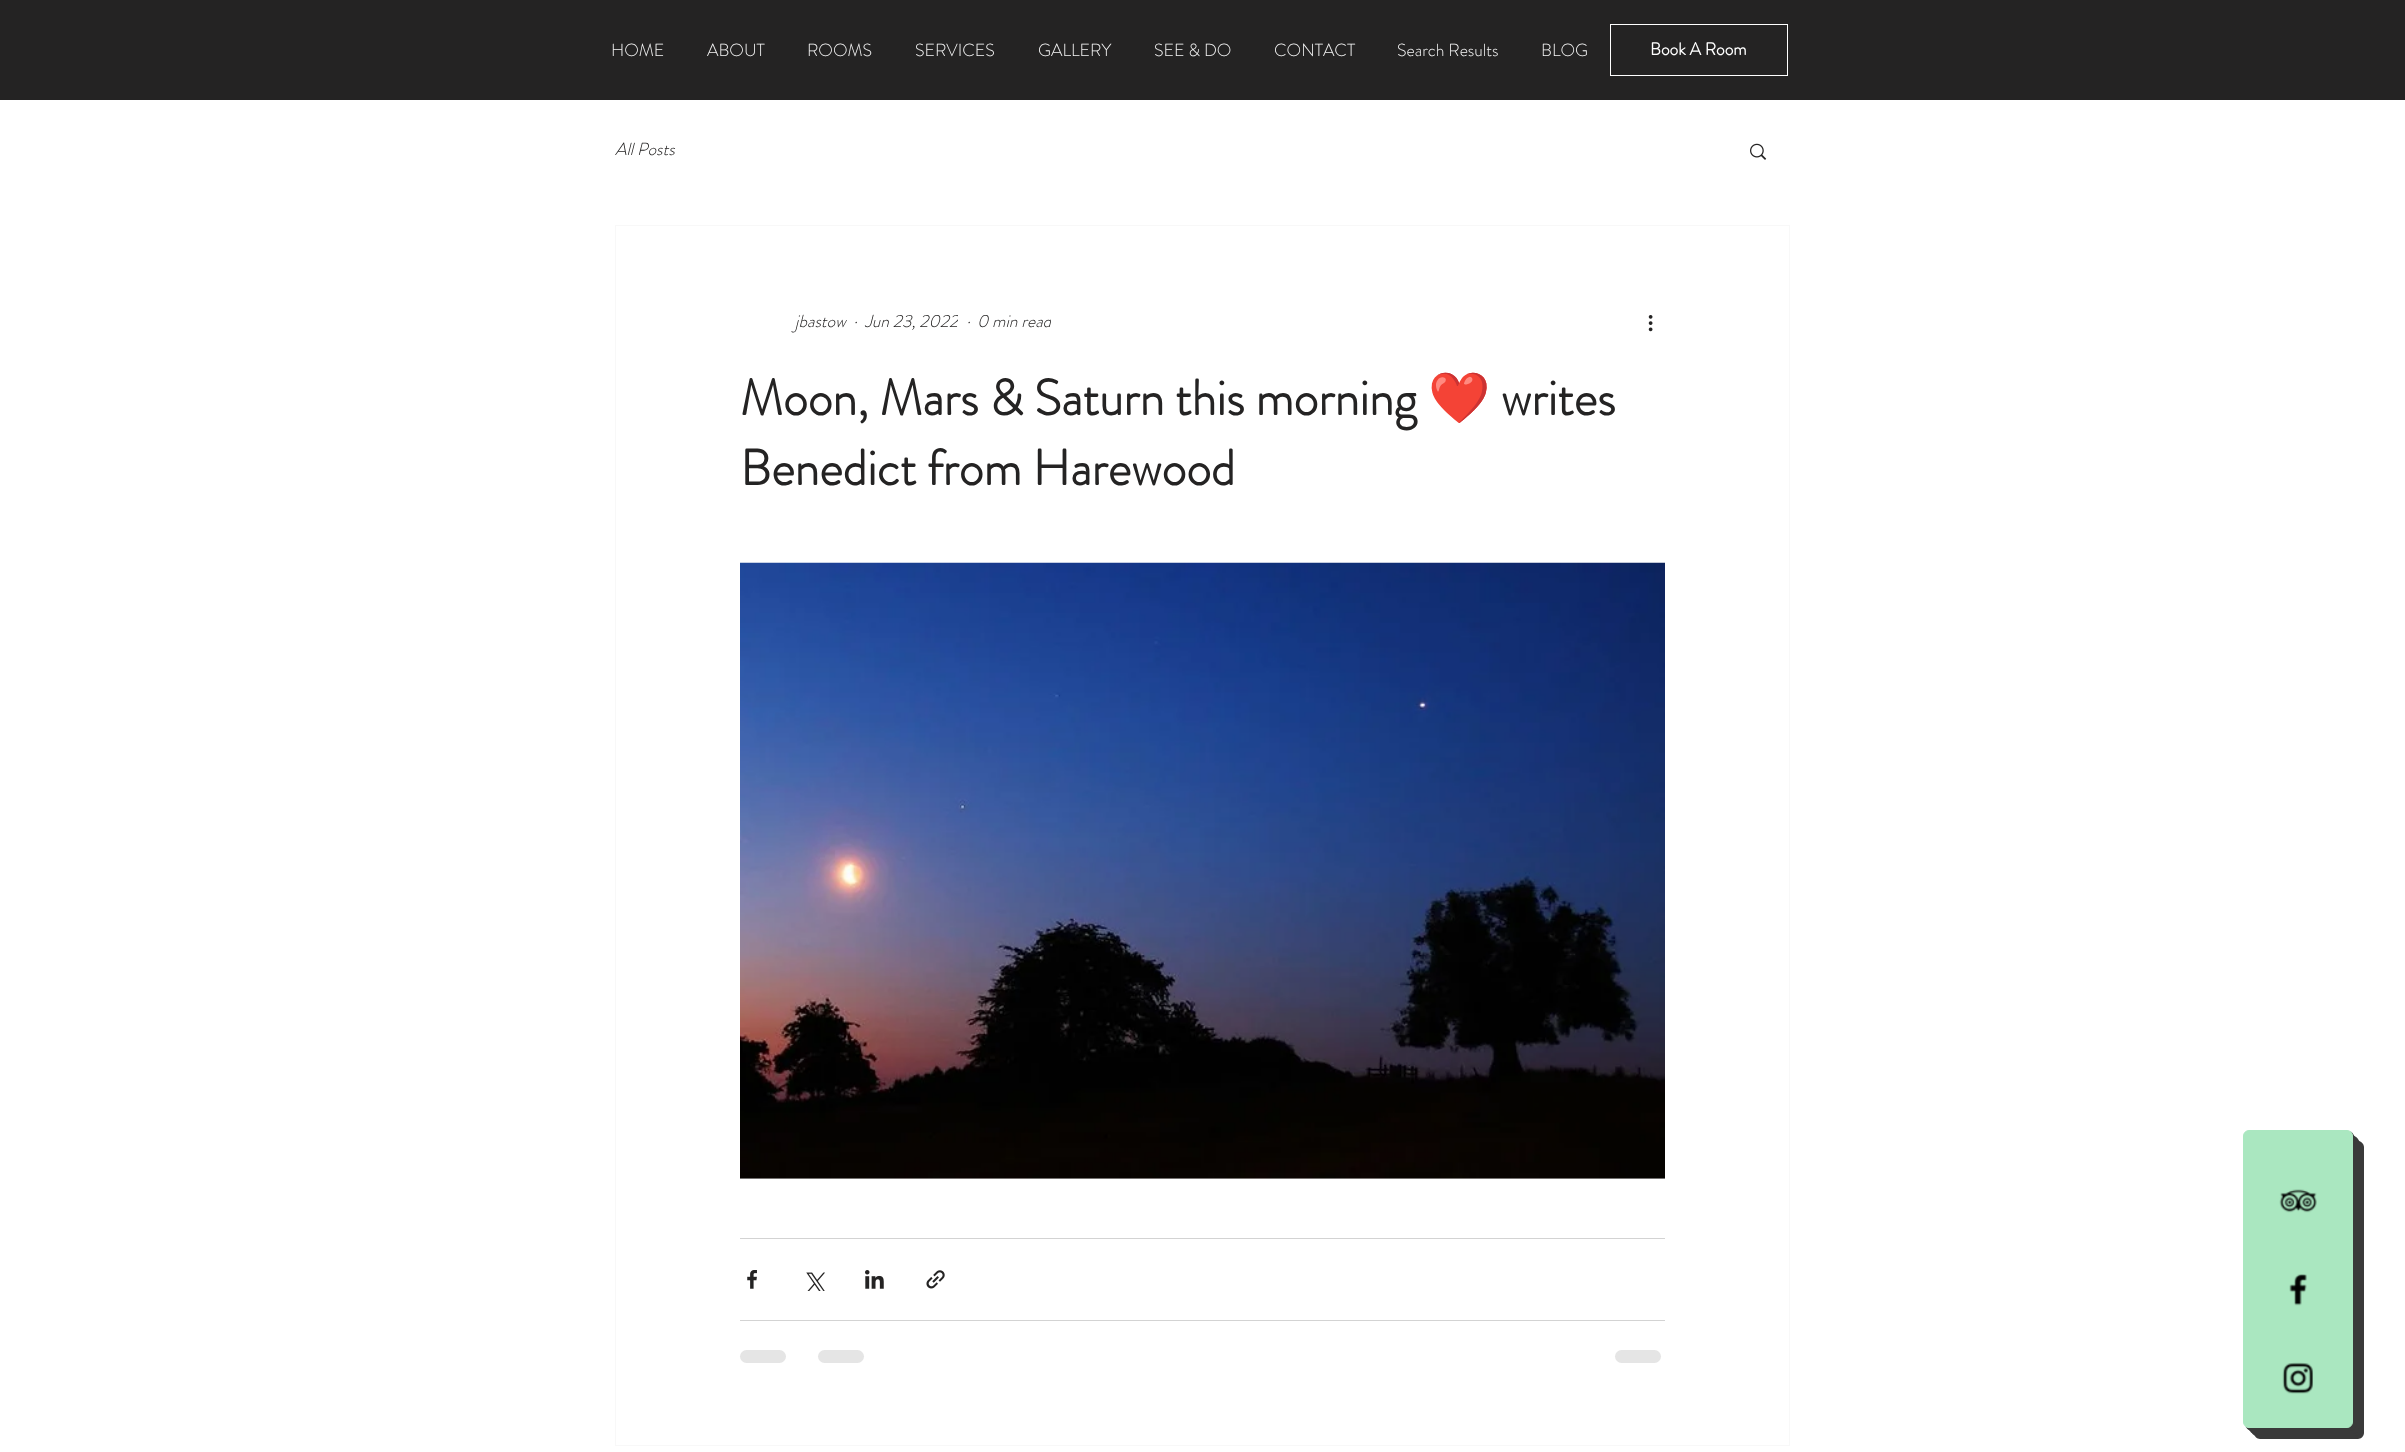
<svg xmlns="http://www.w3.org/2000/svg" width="2405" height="1452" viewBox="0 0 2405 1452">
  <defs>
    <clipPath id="clip1"><rect x="846" y="309" width="112" height="26"/></clipPath>
    <clipPath id="clip2"><rect x="958" y="309" width="93" height="26"/></clipPath>
  </defs>
  <rect width="100%" height="100%" fill="#ffffff"/>
  <rect x="0" y="0" width="2405" height="100" fill="#242323"/>
  <text x="611" y="56" font-family="'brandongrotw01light'" font-size="17.5" font-weight="300" fill="#f5f5f5">HOME</text>
  <text x="707" y="56" font-family="'brandongrotw01light'" font-size="17.5" font-weight="300" fill="#f5f5f5">ABOUT</text>
  <text x="807" y="56" font-family="'brandongrotw01light'" font-size="17.5" font-weight="300" fill="#f5f5f5">ROOMS</text>
  <text x="915" y="56" font-family="'brandongrotw01light'" font-size="17.5" font-weight="300" fill="#f5f5f5">SERVICES</text>
  <text x="1038" y="56" font-family="'brandongrotw01light'" font-size="17.5" font-weight="300" fill="#f5f5f5">GALLERY</text>
  <text x="1154" y="56" font-family="'brandongrotw01light'" font-size="17.5" font-weight="300" fill="#f5f5f5">SEE &amp; DO</text>
  <text x="1274" y="56" font-family="'brandongrotw01light'" font-size="17.5" font-weight="300" fill="#f5f5f5">CONTACT</text>
  <text x="1397" y="56" font-family="'brandongrotw01light'" font-size="17.5" font-weight="300" fill="#f5f5f5">Search Results</text>
  <text x="1541" y="56" font-family="'brandongrotw01light'" font-size="17.5" font-weight="300" fill="#f5f5f5">BLOG</text>
  <rect x="1610.5" y="24.5" width="177" height="51" fill="none" stroke="#ffffff"/>
  <text x="1650" y="55" font-family="'brandongrotw01light'" font-size="17.5" font-weight="bold" fill="#ffffff">Book A Room</text>
  <text x="615" y="155" font-family="'brandongrotw01light'" font-size="17.5" font-weight="300" font-style="italic" fill="#242323">All Posts</text>
  <image x="1750" y="143" width="17" height="17" href="img1.png"/>
  <rect x="615.5" y="225.5" width="1174" height="1220" fill="none" stroke="#f8f8f8"/>
  <text x="795" y="327" font-family="'brandongrotw01light'" font-size="17.5" font-weight="300" font-style="italic" fill="#242323">jbastow</text>
  <text x="853" y="327" font-family="'brandongrotw01light'" font-size="17.5" font-weight="300" font-style="italic" fill="#242323">·</text>
  <g clip-path="url(#clip1)">
    <text x="865" y="327" font-family="'brandongrotw01light'" font-size="17.5" font-weight="300" font-style="italic" fill="#242323">Jun 23, 2022</text>
  </g>
  <text x="966" y="327" font-family="'brandongrotw01light'" font-size="17.5" font-weight="300" font-style="italic" fill="#242323">·</text>
  <g clip-path="url(#clip2)">
    <text x="977" y="327" font-family="'brandongrotw01light'" font-size="17.5" font-weight="300" font-style="italic" fill="#242323">0 min read</text>
  </g>
  <image x="1648" y="315" width="5" height="17" href="img2.png"/>
  <text x="740" y="415" font-family="'brandongrotw01light'" font-size="50" font-weight="bold" fill="#242323">Moon, Mars &amp; Saturn this morning</text>
  <text x="1428" y="415" font-family="Noto Color Emoji" font-size="50" font-weight="bold" fill="#242323">❤️</text>
  <text x="1501" y="415" font-family="'brandongrotw01light'" font-size="50" font-weight="bold" fill="#242323">writes</text>
  <text x="740" y="485" font-family="'brandongrotw01light'" font-size="50" font-weight="bold" fill="#242323">Benedict from Harewood</text>
  <image x="740" y="562" width="925" height="617" href="img3.png"/>
  <rect x="740" y="1238" width="925" height="1" fill="#d3d3d3"/>
  <image x="747" y="1270" width="10" height="19" href="img4.png"/>
  <image x="806" y="1272" width="19" height="19" href="img5.png"/>
  <image x="865" y="1270" width="19" height="19" href="img6.png"/>
  <image x="926" y="1270" width="19" height="19" href="img7.png"/>
  <rect x="740" y="1320" width="925" height="1" fill="#d3d3d3"/>
  <rect x="740" y="1350" width="46" height="13" rx="6.5" fill="#e5e5e5"/>
  <rect x="818" y="1350" width="46" height="13" rx="6.5" fill="#e5e5e5"/>
  <rect x="1615" y="1350" width="46" height="13" rx="6.5" fill="#e5e5e5"/>
  <path d="M2254 1428V1433C2254 1436 2257 1439 2260 1439H2358C2361 1439 2364 1436 2364 1433V1147C2364 1144 2361 1141 2358 1141H2352V1421C2352 1425 2350 1428 2346 1428Z" fill="#3a3a3a"/>
  <path d="M2251 1428V1430C2251 1433 2254 1436 2257 1436H2355C2358 1436 2361 1433 2361 1430V1145C2361 1142 2358 1139 2355 1139H2352V1421C2352 1425 2350 1428 2346 1428Z" fill="#3a3a3a"/>
  <path d="M2249 1428C2249 1431 2252 1434 2255 1434H2353C2356 1434 2359 1431 2359 1428V1142C2359 1139 2356 1136 2353 1136H2352V1421C2352 1431 2333 1428 2330 1428Z" fill="#3a3a3a"/>
  <path d="M2246 1427C2247 1429 2249 1431 2252 1431H2350C2353 1431 2356 1428 2356 1425V1140C2356 1137 2354 1135 2352 1134V1421C2352 1425 2350 1428 2346 1428H2249Z" fill="#3a3a3a"/>
  <path d="M2245 1426C2246 1428 2248 1429 2250 1429H2348C2351 1429 2354 1426 2354 1423V1137C2354 1134 2352 1132 2350 1131C2352 1133 2352 1134 2352 1136V1421C2352 1425 2350 1428 2346 1428H2249C2247 1428 2246 1427 2245 1426Z" fill="#3a3a3a"/>
  <rect x="2243.5" y="1130.5" width="109" height="297" rx="5.5" fill="#aae7c0" stroke="#aae7c0"/>
  <image x="2279" y="1189" width="38" height="24" href="img8.png"/>
  <image x="2289" y="1274" width="18" height="32" href="img9.png"/>
  <image x="2282" y="1362" width="31" height="32" href="img10.png"/>
</svg>
